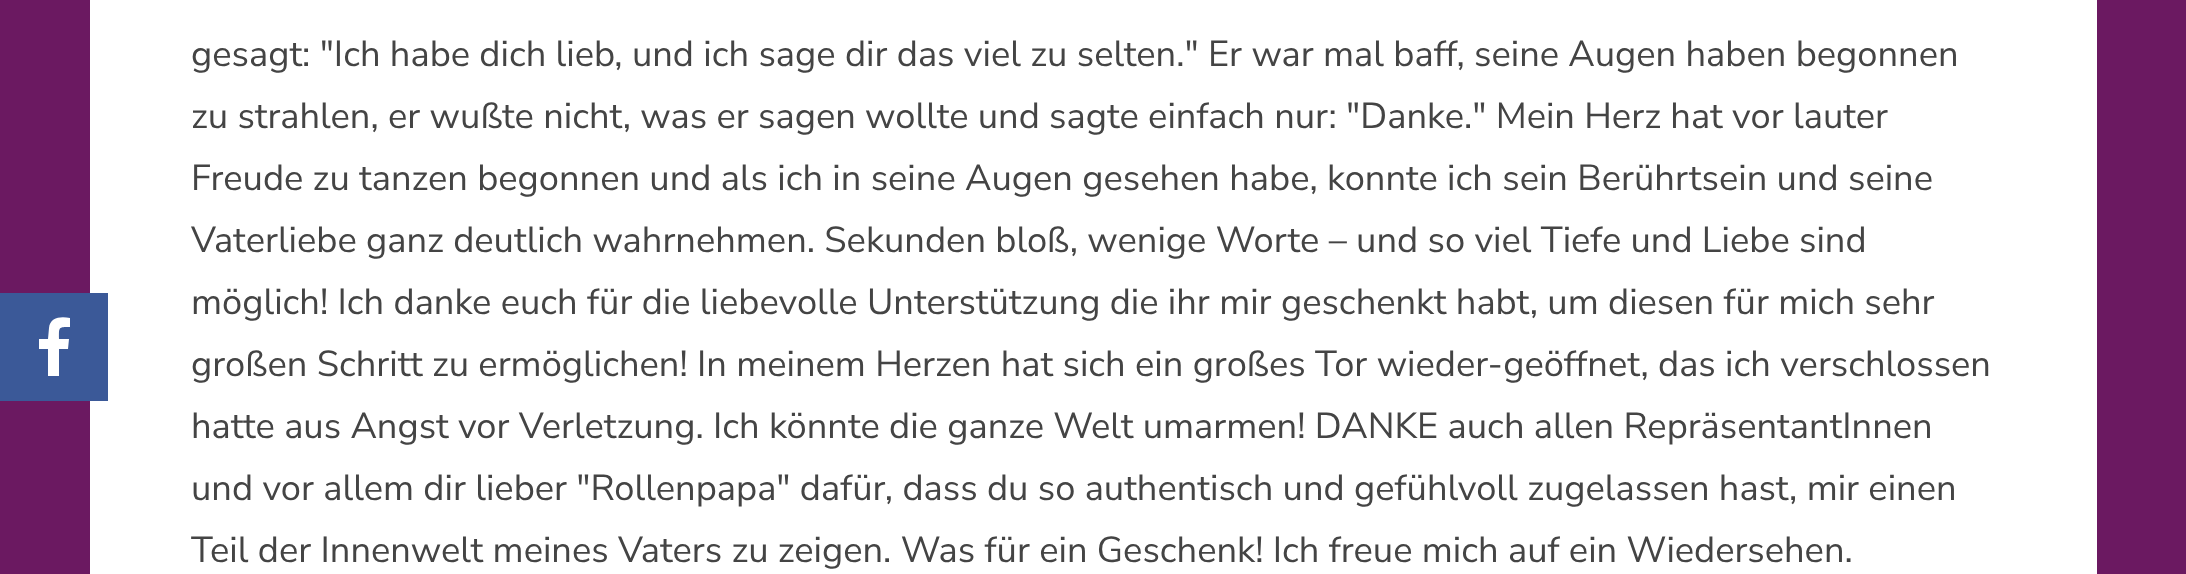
<svg xmlns="http://www.w3.org/2000/svg" width="2186" height="574" viewBox="0 0 2186 574">
  <rect width="100%" height="100%" fill="#6b1961"/>
  <rect x="90" y="0" width="2007" height="574" fill="#ffffff"/>
  <rect x="0" y="293" width="108" height="108" fill="#3b5998"/>
  <path d="M70 318V327C58 327 59 327 59 339H69L68 349H59V376H48V349H39V339H48L49 328C50 317 61 316 70 318Z" fill="#ffffff"/>
  <text x="191" y="66" font-family="Nunito Sans" font-size="36.25" fill="#444444">gesagt: "Ich habe dich lieb, und ich sage dir das viel zu selten." Er war mal baff, seine Augen haben begonnen</text>
  <text x="191" y="128" font-family="Nunito Sans" font-size="36.25" fill="#444444">zu strahlen, er wußte nicht, was er sagen wollte und sagte einfach nur: "Danke." Mein Herz hat vor lauter</text>
  <text x="191" y="190" font-family="Nunito Sans" font-size="36.25" fill="#444444">Freude zu tanzen begonnen und als ich in seine Augen gesehen habe, konnte ich sein Berührtsein und seine</text>
  <text x="191" y="252" font-family="Nunito Sans" font-size="36.25" fill="#444444">Vaterliebe ganz deutlich wahrnehmen. Sekunden bloß, wenige Worte – und so viel Tiefe und Liebe sind</text>
  <text x="191" y="314" font-family="Nunito Sans" font-size="36.25" fill="#444444">möglich! Ich danke euch für die liebevolle Unterstützung die ihr mir geschenkt habt, um diesen für mich sehr</text>
  <text x="191" y="376" font-family="Nunito Sans" font-size="36.25" fill="#444444">großen Schritt zu ermöglichen! In meinem Herzen hat sich ein großes Tor wieder-geöffnet, das ich verschlossen</text>
  <text x="191" y="438" font-family="Nunito Sans" font-size="36.25" fill="#444444">hatte aus Angst vor Verletzung. Ich könnte die ganze Welt umarmen! DANKE auch allen RepräsentantInnen</text>
  <text x="191" y="500" font-family="Nunito Sans" font-size="36.25" fill="#444444">und vor allem dir lieber "Rollenpapa" dafür, dass du so authentisch und gefühlvoll zugelassen hast, mir einen</text>
  <text x="191" y="562" font-family="Nunito Sans" font-size="36.25" fill="#444444">Teil der Innenwelt meines Vaters zu zeigen. Was für ein Geschenk! Ich freue mich auf ein Wiedersehen.</text>
</svg>
